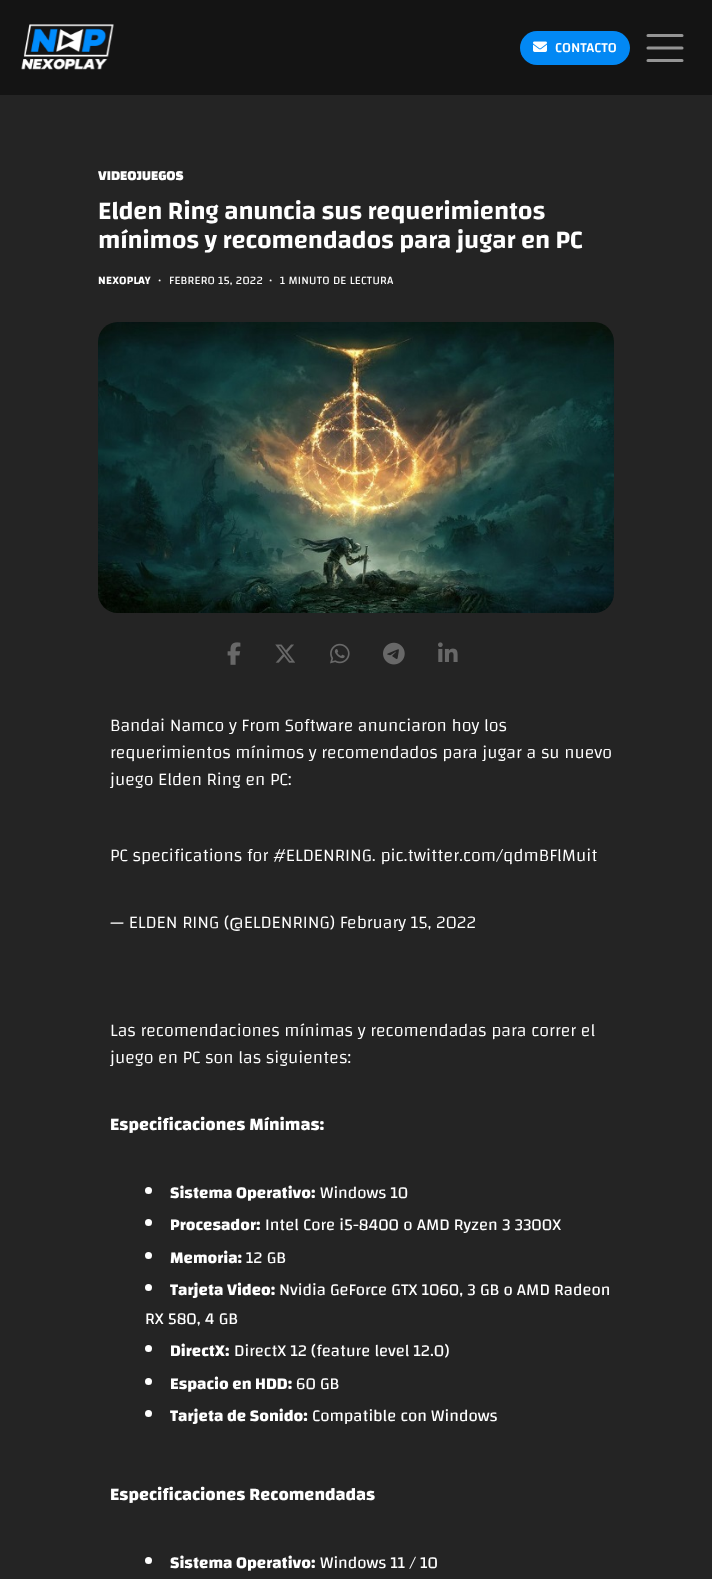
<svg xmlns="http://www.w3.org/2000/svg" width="712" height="1579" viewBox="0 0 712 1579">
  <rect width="100%" height="100%" fill="#242424"/>
  <rect x="0" y="0" width="712" height="95" fill="#141414"/>
  <image x="21" y="24" width="93" height="46" href="img1.png"/>
  <rect x="520" y="31" width="110" height="34" rx="17" fill="#0288f4"/>
  <image x="533" y="41" width="14" height="11" href="img2.png"/>
  <text x="555" y="52" font-family="Changa" font-size="14" font-weight="500" fill="#ffffff">CONTACTO</text>
  <path d="M648 35.5H682M648 48H682M648 60.5H682" fill="none" stroke="#959595" stroke-width="3.1" stroke-linecap="round"/>
  <text x="98" y="180" font-family="Changa" font-size="14" font-weight="800" fill="#ffffff">VIDEOJUEGOS</text>
  <text x="98" y="219" font-family="Changa" font-size="25.9" font-weight="600" letter-spacing="-0.25" fill="#ffffff">Elden Ring anuncia sus requerimientos</text>
  <text x="98" y="248" font-family="Changa" font-size="25.9" font-weight="600" letter-spacing="-0.25" fill="#ffffff">mínimos y recomendados para jugar en PC</text>
  <text x="98" y="284" font-family="Changa" font-size="11.5" font-weight="600" letter-spacing="0.25" fill="#ffffff">NEXOPLAY</text>
  <text x="158" y="284" font-family="Changa" font-size="11.5" letter-spacing="0.25" fill="#ffffff">•</text>
  <text x="169" y="284" font-family="Changa" font-size="11.5" letter-spacing="0.25" fill="#ffffff">FEBRERO 15, 2022</text>
  <text x="269" y="284" font-family="Changa" font-size="11.5" letter-spacing="0.25" fill="#ffffff">•</text>
  <text x="280" y="284" font-family="Changa" font-size="11.5" letter-spacing="0.25" fill="#ffffff">1 MINUTO DE LECTURA</text>
  <image x="98" y="322" width="516" height="291" href="img3.png"/>
  <image x="227" y="642" width="14" height="23" href="img4.png"/>
  <image x="275" y="644" width="20" height="19" href="img5.png"/>
  <image x="330" y="643" width="20" height="21" href="img6.png"/>
  <image x="383" y="642" width="22" height="23" href="img7.png"/>
  <image x="438" y="642" width="20" height="20" href="img8.png"/>
  <text x="110" y="731" font-family="Changa" font-size="17.9" font-weight="300" fill="#ffffff">Bandai Namco y From Software anunciaron hoy los</text>
  <text x="110" y="758" font-family="Changa" font-size="17.9" font-weight="300" fill="#ffffff">requerimientos mínimos y recomendados para jugar a su nuevo</text>
  <text x="110" y="785" font-family="Changa" font-size="17.9" font-weight="300" fill="#ffffff">juego Elden Ring en PC:</text>
  <text x="110" y="861" font-family="Changa" font-size="17.9" font-weight="300" fill="#ffffff">PC specifications for #ELDENRING. pic.twitter.com/qdmBFlMuit</text>
  <text x="110" y="928" font-family="Changa" font-size="17.9" font-weight="300" fill="#ffffff">— ELDEN RING (@ELDENRING) February 15, 2022</text>
  <text x="110" y="1036" font-family="Changa" font-size="17.9" font-weight="300" fill="#ffffff">Las recomendaciones mínimas y recomendadas para correr el</text>
  <text x="110" y="1063" font-family="Changa" font-size="17.9" font-weight="300" fill="#ffffff">juego en PC son las siguientes:</text>
  <text x="110" y="1130" font-family="Changa" font-size="17.9" font-weight="bold" fill="#ffffff">Especificaciones Mínimas:</text>
  <circle cx="148.5" cy="1190.5" r="3.5" fill="#ffffff"/>
  <text x="170" y="1198" font-family="Changa" font-size="16.75" font-weight="bold" fill="#ffffff">Sistema Operativo:</text>
  <text x="320" y="1198" font-family="Changa" font-size="16.75" fill="#ffffff">Windows 10</text>
  <circle cx="148.5" cy="1222.5" r="3.5" fill="#ffffff"/>
  <text x="170" y="1230" font-family="Changa" font-size="16.75" font-weight="bold" fill="#ffffff">Procesador:</text>
  <text x="265" y="1230" font-family="Changa" font-size="16.75" fill="#ffffff">Intel Core i5-8400 o AMD Ryzen 3 3300X</text>
  <circle cx="148.5" cy="1255.5" r="3.5" fill="#ffffff"/>
  <text x="170" y="1263" font-family="Changa" font-size="16.75" font-weight="bold" fill="#ffffff">Memoria:</text>
  <text x="246" y="1263" font-family="Changa" font-size="16.75" fill="#ffffff">12 GB</text>
  <circle cx="148.5" cy="1287.5" r="3.5" fill="#ffffff"/>
  <text x="170" y="1295" font-family="Changa" font-size="16.75" font-weight="bold" fill="#ffffff">Tarjeta Video:</text>
  <text x="279" y="1295" font-family="Changa" font-size="16.75" fill="#ffffff">Nvidia GeForce GTX 1060, 3 GB o AMD Radeon</text>
  <text x="145" y="1324" font-family="Changa" font-size="16.75" fill="#ffffff">RX 580, 4 GB</text>
  <circle cx="148.5" cy="1348.5" r="3.5" fill="#ffffff"/>
  <text x="170" y="1356" font-family="Changa" font-size="16.75" font-weight="bold" fill="#ffffff">DirectX:</text>
  <text x="234" y="1356" font-family="Changa" font-size="16.75" fill="#ffffff">DirectX 12 (feature level 12.0)</text>
  <circle cx="148.5" cy="1381.5" r="3.5" fill="#ffffff"/>
  <text x="170" y="1389" font-family="Changa" font-size="16.75" font-weight="bold" fill="#ffffff">Espacio en HDD:</text>
  <text x="296" y="1389" font-family="Changa" font-size="16.75" fill="#ffffff">60 GB</text>
  <circle cx="148.5" cy="1413.5" r="3.5" fill="#ffffff"/>
  <text x="170" y="1421" font-family="Changa" font-size="16.75" font-weight="bold" fill="#ffffff">Tarjeta de Sonido:</text>
  <text x="312" y="1421" font-family="Changa" font-size="16.75" fill="#ffffff">Compatible con Windows</text>
  <text x="110" y="1500" font-family="Changa" font-size="17.9" font-weight="bold" fill="#ffffff">Especificaciones Recomendadas</text>
  <circle cx="148.5" cy="1560.5" r="3.5" fill="#ffffff"/>
  <text x="170" y="1568" font-family="Changa" font-size="16.75" font-weight="bold" fill="#ffffff">Sistema Operativo:</text>
  <text x="320" y="1568" font-family="Changa" font-size="16.75" fill="#ffffff">Windows 11 / 10</text>
</svg>
